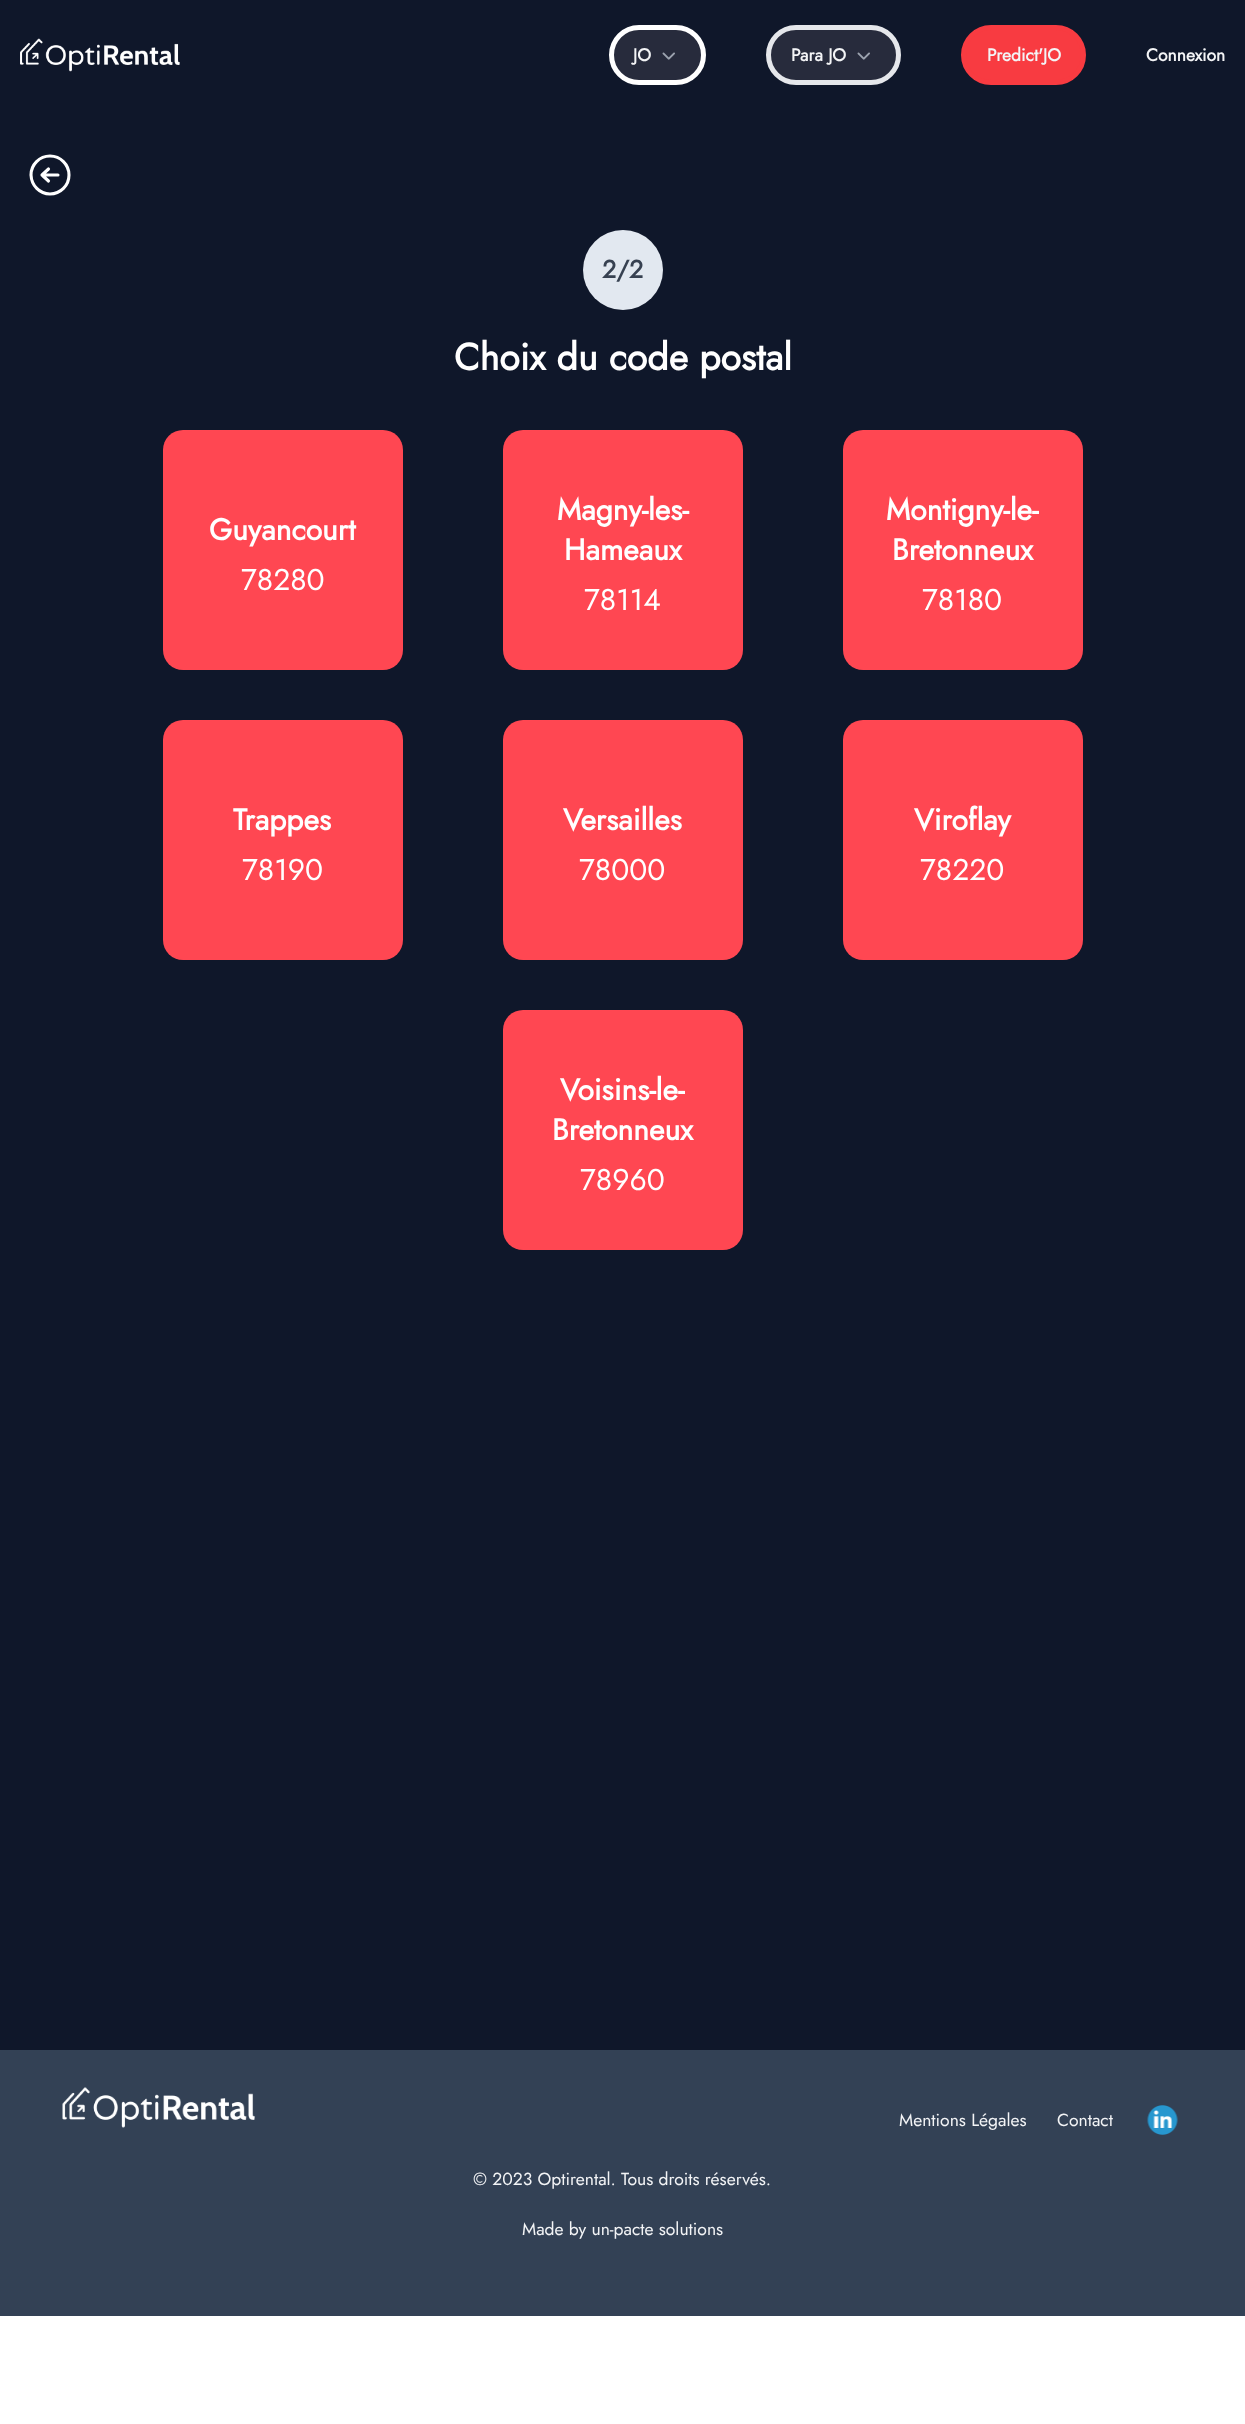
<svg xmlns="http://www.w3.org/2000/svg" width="1245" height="2424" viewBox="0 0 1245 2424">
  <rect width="100%" height="100%" fill="#ffffff"/>
  <rect x="0" y="0" width="1245" height="2050" fill="#0f172a"/>
  <image x="20" y="38" width="160" height="34" href="img1.png"/>
  <rect x="611.5" y="27.5" width="92" height="55" rx="27.5" fill="#272b3c" stroke="#ffffff" stroke-width="5"/>
  <text x="633" y="61" font-family="Jost" font-size="17.5" font-weight="bold" fill="#f3f4f6">JO</text>
  <image x="662" y="52" width="13" height="8" href="img2.png"/>
  <rect x="768.5" y="27.5" width="130" height="55" rx="27.5" fill="#272b3c" stroke="#e5e7eb" stroke-width="5"/>
  <text x="791" y="61" font-family="Jost" font-size="17.5" font-weight="bold" fill="#f3f4f6">Para JO</text>
  <image x="857" y="52" width="13" height="8" href="img2.png"/>
  <rect x="963.5" y="27.5" width="120" height="55" rx="27.5" fill="#f83b41" stroke="#f83b41" stroke-width="5"/>
  <text x="987" y="61" font-family="Jost" font-size="17.5" font-weight="bold" fill="#f3f4f6">Predict'JO</text>
  <text x="1146" y="61" font-family="Jost" font-size="17.5" font-weight="bold" fill="#f3f4f6">Connexion</text>
  <path d="M48.5 169L42 175M42 175L48.5 181M42 175H58M69 175C69 185.5 60.5 194 50 194C39.5 194 31.5 185.5 31 175C31 164.5 39.5 156 50 156C60.5 156 69 164.5 69 175Z" fill="none" stroke="#ffffff" stroke-width="3.1" stroke-linecap="round" stroke-linejoin="round"/>
  <circle cx="623" cy="270" r="40" fill="#e2e8f0"/>
  <text x="602" y="278" font-family="Jost" font-size="25" font-weight="bold" fill="#374151">2/2</text>
  <text x="454" y="370" font-family="Jost" font-size="37.5" font-weight="bold" fill="#ffffff">Choix du code postal</text>
  <rect x="163" y="430" width="240" height="240" rx="20" fill="#ff4752"/>
  <text x="209" y="540" font-family="Jost" font-size="30" font-weight="bold" fill="#ffffff">Guyancourt</text>
  <text x="241" y="590" font-family="Jost" font-size="30" fill="#ffffff">78280</text>
  <rect x="503" y="430" width="240" height="240" rx="20" fill="#ff4752"/>
  <text x="557" y="520" font-family="Jost" font-size="30" font-weight="bold" fill="#ffffff">Magny-les-</text>
  <text x="564" y="560" font-family="Jost" font-size="30" font-weight="bold" fill="#ffffff">Hameaux</text>
  <text x="584" y="610" font-family="Jost" font-size="30" fill="#ffffff">78114</text>
  <rect x="843" y="430" width="240" height="240" rx="20" fill="#ff4752"/>
  <text x="886" y="520" font-family="Jost" font-size="30" font-weight="bold" fill="#ffffff">Montigny-le-</text>
  <text x="892" y="560" font-family="Jost" font-size="30" font-weight="bold" fill="#ffffff">Bretonneux</text>
  <text x="922" y="610" font-family="Jost" font-size="30" fill="#ffffff">78180</text>
  <rect x="163" y="720" width="240" height="240" rx="20" fill="#ff4752"/>
  <text x="233" y="830" font-family="Jost" font-size="30" font-weight="bold" fill="#ffffff">Trappes</text>
  <text x="242" y="880" font-family="Jost" font-size="30" fill="#ffffff">78190</text>
  <rect x="503" y="720" width="240" height="240" rx="20" fill="#ff4752"/>
  <text x="563" y="830" font-family="Jost" font-size="30" font-weight="bold" fill="#ffffff">Versailles</text>
  <text x="579" y="880" font-family="Jost" font-size="30" fill="#ffffff">78000</text>
  <rect x="843" y="720" width="240" height="240" rx="20" fill="#ff4752"/>
  <text x="914" y="830" font-family="Jost" font-size="30" font-weight="bold" fill="#ffffff">Viroflay</text>
  <text x="920" y="880" font-family="Jost" font-size="30" fill="#ffffff">78220</text>
  <rect x="503" y="1010" width="240" height="240" rx="20" fill="#ff4752"/>
  <text x="560" y="1100" font-family="Jost" font-size="30" font-weight="bold" fill="#ffffff">Voisins-le-</text>
  <text x="552" y="1140" font-family="Jost" font-size="30" font-weight="bold" fill="#ffffff">Bretonneux</text>
  <text x="580" y="1190" font-family="Jost" font-size="30" fill="#ffffff">78960</text>
  <rect x="0" y="2050" width="1245" height="266" fill="#334155"/>
  <image x="62" y="2087" width="193" height="41" href="img3.png"/>
  <text x="899" y="2126" font-family="Jost" font-size="17.5" fill="#f3f4f6">Mentions Légales</text>
  <text x="1057" y="2126" font-family="Jost" font-size="17.5" fill="#f3f4f6">Contact</text>
  <image x="1147" y="2105" width="31" height="30" href="img4.png"/>
  <text x="473" y="2185" font-family="Jost" font-size="17.5" fill="#f3f4f6">© 2023 Optirental. Tous droits réservés.</text>
  <text x="522" y="2235" font-family="Jost" font-size="17.5" fill="#f3f4f6">Made by un-pacte solutions</text>
</svg>
